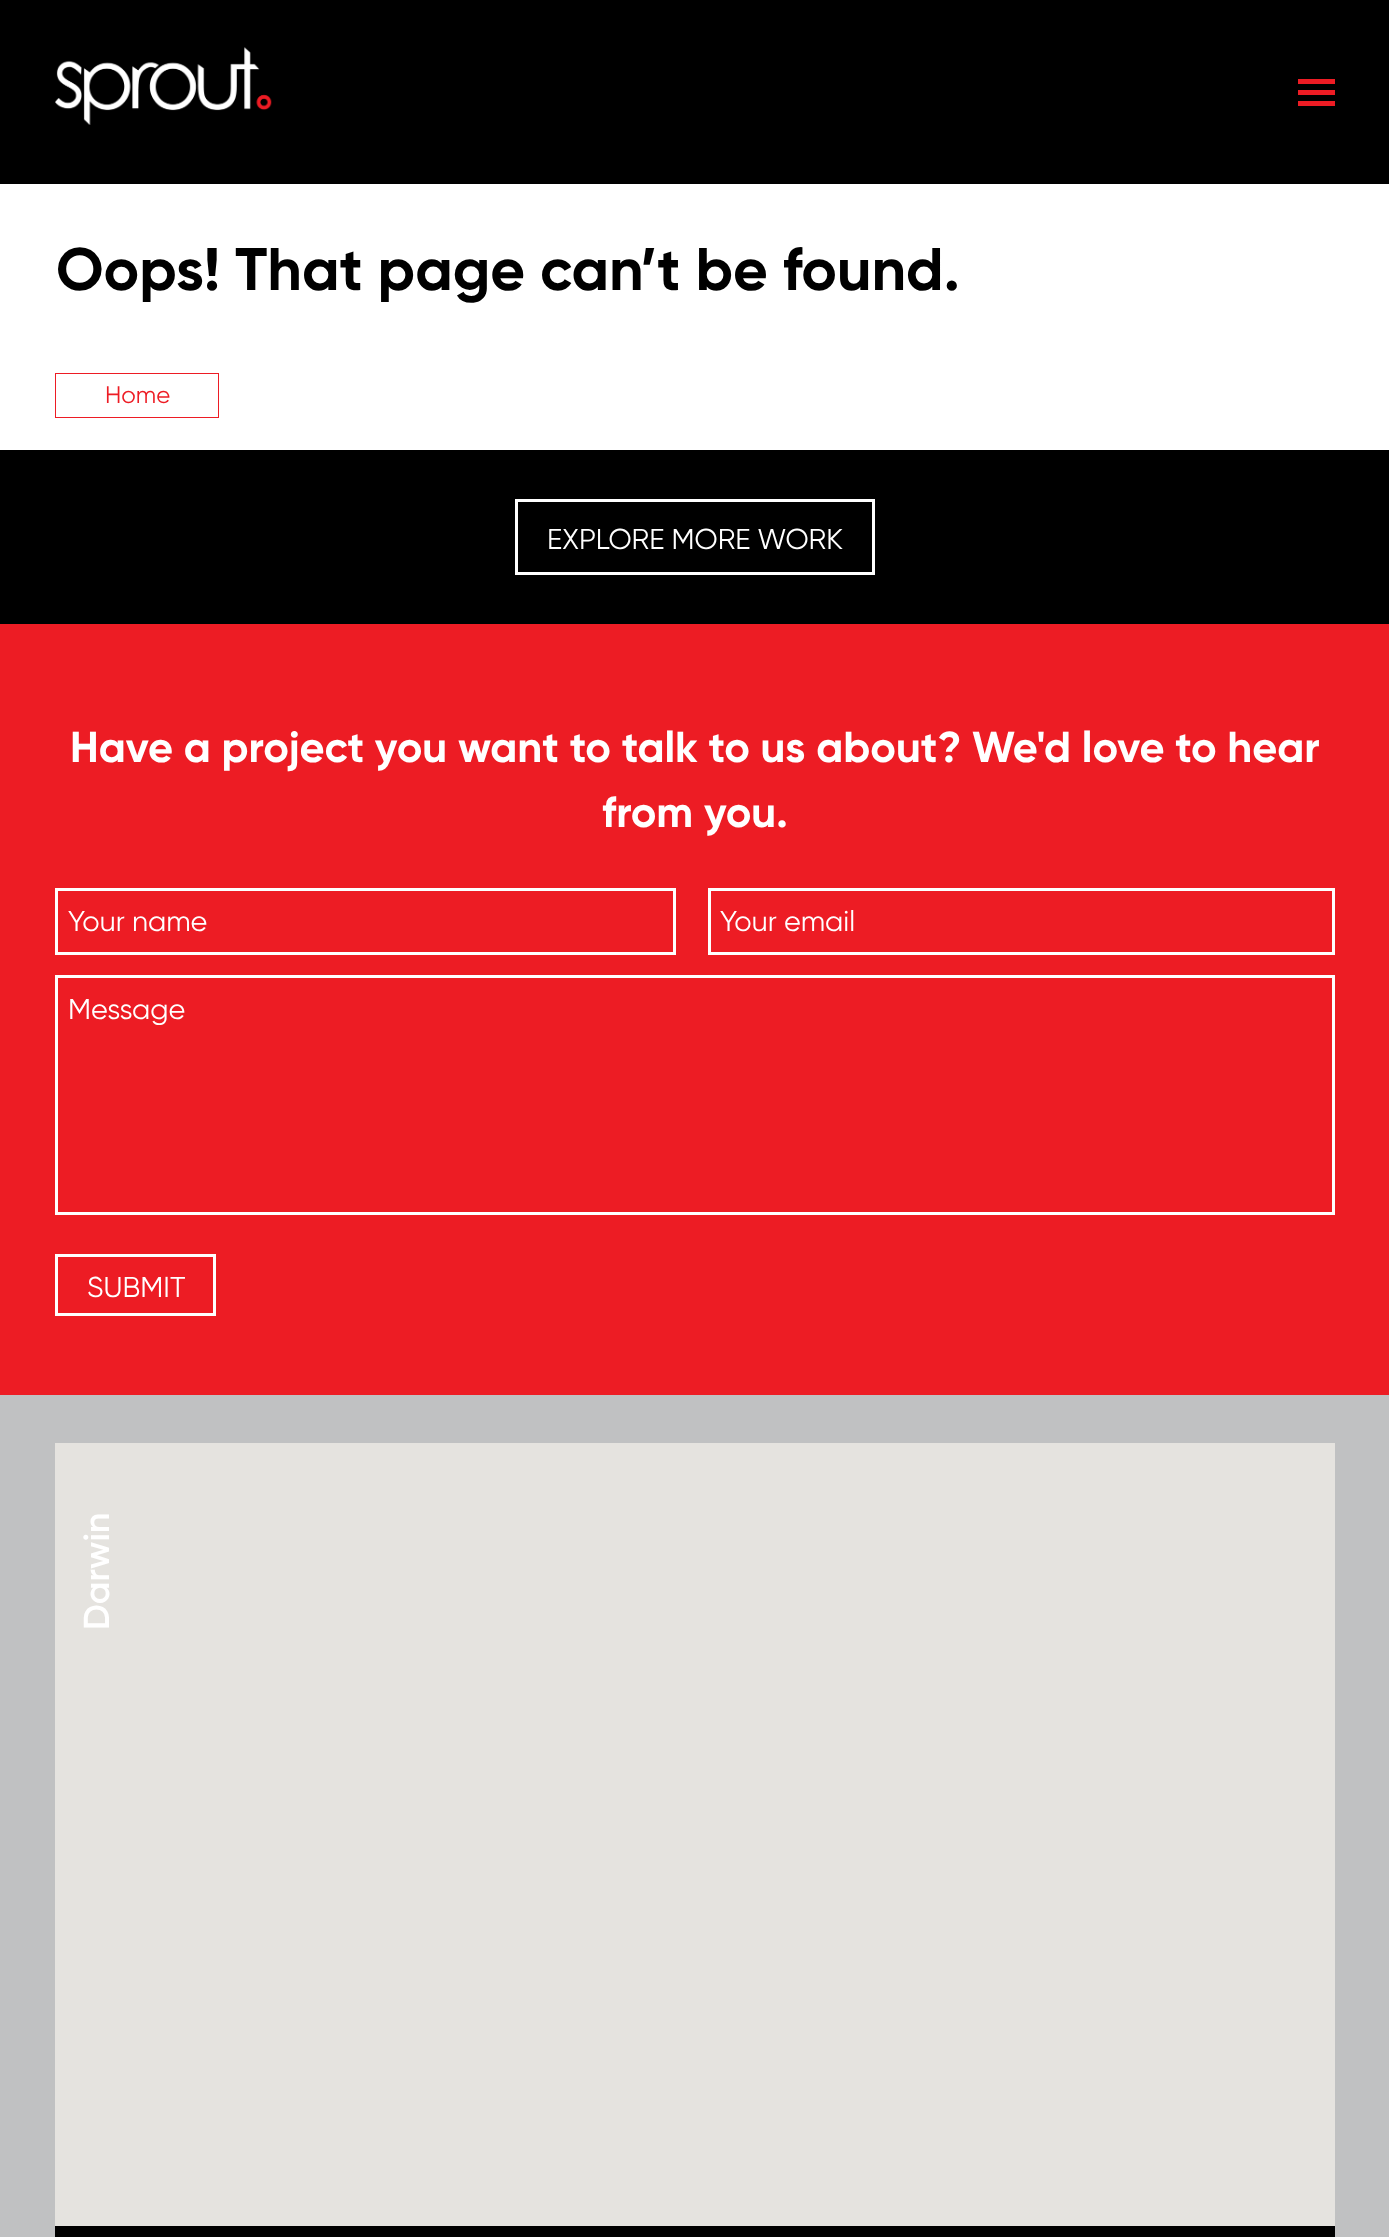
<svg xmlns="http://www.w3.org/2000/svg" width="1389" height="2237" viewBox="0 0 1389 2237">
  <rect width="100%" height="100%" fill="#ffffff"/>
  <rect x="0" y="0" width="1389" height="184" fill="#000000"/>
  <image x="55" y="47" width="217" height="78" href="img1.png"/>
  <rect x="1298" y="79" width="37" height="5" fill="#ed1c24"/>
  <rect x="1298" y="90" width="37" height="5" fill="#ed1c24"/>
  <rect x="1298" y="101" width="37" height="5" fill="#ed1c24"/>
  <text x="56" y="290" font-family="Gilroy" font-size="60" font-weight="bold" fill="#000000">Oops! That page can’t be found.</text>
  <rect x="55.5" y="373.5" width="163" height="44" fill="none" stroke="#ed1c24"/>
  <text x="105" y="403" font-family="Gilroy" font-size="24" fill="#ed1c24">Home</text>
  <rect x="0" y="450" width="1389" height="174" fill="#000000"/>
  <rect x="516.5" y="500.5" width="357" height="73" fill="none" stroke="#ffffff" stroke-width="3"/>
  <text x="547" y="549" font-family="Gilroy" font-size="28.75" fill="#ffffff">EXPLORE MORE WORK</text>
  <rect x="0" y="624" width="1389" height="771" fill="#ed1c24"/>
  <text x="70" y="762" font-family="Gilroy" font-size="43.2" font-weight="bold" fill="#ffffff">Have a project you want to talk to us about? We'd love to hear</text>
  <text x="602" y="827" font-family="Gilroy" font-size="43.2" font-weight="bold" fill="#ffffff">from you.</text>
  <rect x="56.5" y="889.5" width="618" height="64" fill="none" stroke="#ffffff" stroke-width="3"/>
  <text x="68" y="931" font-family="Gilroy" font-size="28.75" fill="#ffffff">Your name</text>
  <rect x="709.5" y="889.5" width="624" height="64" fill="none" stroke="#ffffff" stroke-width="3"/>
  <text x="720" y="931" font-family="Gilroy" font-size="28.75" fill="#ffffff">Your email</text>
  <rect x="56.5" y="976.5" width="1277" height="237" fill="none" stroke="#ffffff" stroke-width="3"/>
  <text x="68" y="1019" font-family="Gilroy" font-size="28.75" fill="#ffffff">Message</text>
  <rect x="56.5" y="1255.5" width="158" height="59" fill="none" stroke="#ffffff" stroke-width="3"/>
  <text x="87" y="1297" font-family="Gilroy" font-size="28.75" fill="#ffffff">SUBMIT</text>
  <rect x="0" y="1395" width="1389" height="842" fill="#c0c1c2"/>
  <rect x="55" y="1443" width="1280" height="783" fill="#e5e3df"/>
  <text x="109" y="1630" transform="rotate(-90 109 1630)" font-family="Gilroy" font-size="36" font-weight="600" fill="#ffffff">Darwin</text>
  <rect x="55" y="2226" width="1280" height="11" fill="#000000"/>
</svg>
